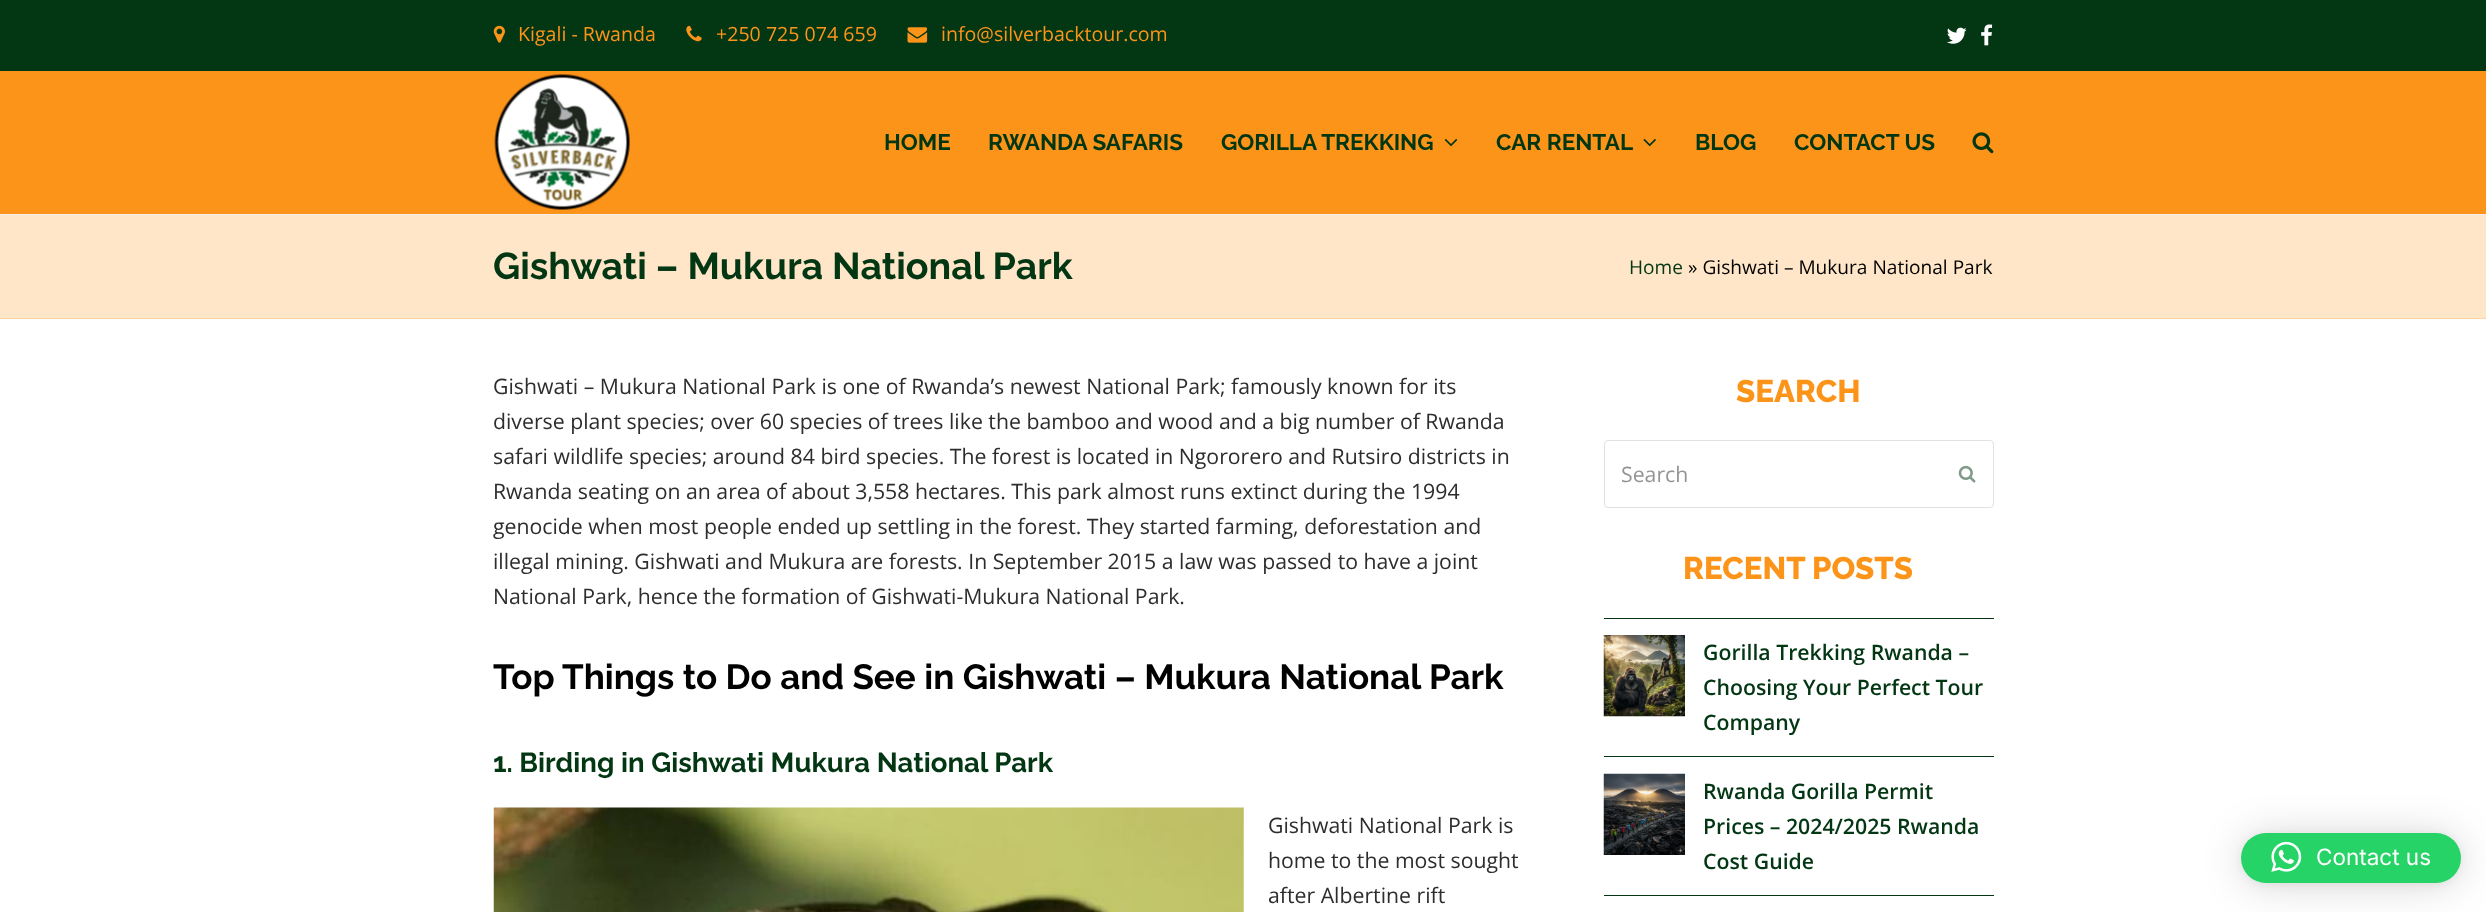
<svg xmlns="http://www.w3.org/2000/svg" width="2486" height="912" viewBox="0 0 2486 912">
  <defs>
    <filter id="blur1" x="-50%" y="-200%" width="200%" height="500%"><feGaussianBlur stdDeviation="20"/></filter>
    <filter id="blur2" x="-50%" y="-200%" width="200%" height="500%"><feGaussianBlur stdDeviation="4"/></filter>
  </defs>
  <rect width="100%" height="100%" fill="#ffffff"/>
  <rect x="0" y="0" width="2486" height="71" fill="#033613"/>
  <image x="493" y="25" width="12" height="18" href="img1.png"/>
  <text x="518" y="41" font-family="Open Sans" font-size="19.6" fill="#fd941a">Kigali - Rwanda</text>
  <image x="686" y="25" width="16" height="17" href="img2.png"/>
  <text x="716" y="41" font-family="Open Sans" font-size="19.6" fill="#fd941a">+250 725 074 659</text>
  <image x="907" y="27" width="21" height="16" href="img3.png"/>
  <text x="941" y="41" font-family="Open Sans" font-size="19.6" fill="#fd941a">info@silverbacktour.com</text>
  <image x="1947" y="27" width="20" height="17" href="img4.png"/>
  <image x="1981" y="24" width="12" height="22" href="img5.png"/>
  <rect x="0" y="71" width="2486" height="143" fill="#fd941a"/>
  <image x="494" y="74" width="136" height="136" href="img6.png"/>
  <text x="884" y="150" font-family="Raleway" font-size="22.5" font-weight="bold" fill="#033613">HOME</text>
  <text x="988" y="150" font-family="Raleway" font-size="22.5" font-weight="bold" fill="#033613">RWANDA SAFARIS</text>
  <text x="1221" y="150" font-family="Raleway" font-size="22.5" font-weight="bold" fill="#033613">GORILLA TREKKING</text>
  <image x="1444" y="139" width="14" height="8" href="img7.png"/>
  <text x="1496" y="150" font-family="Raleway" font-size="22.5" font-weight="bold" fill="#033613">CAR RENTAL</text>
  <image x="1643" y="139" width="13" height="8" href="img8.png"/>
  <text x="1695" y="150" font-family="Raleway" font-size="22.5" font-weight="bold" fill="#033613">BLOG</text>
  <text x="1794" y="150" font-family="Raleway" font-size="22.5" font-weight="bold" fill="#033613">CONTACT US</text>
  <image x="1972" y="132" width="22" height="22" href="img9.png"/>
  <rect x="0" y="215" width="2486" height="103" fill="#ffe6c9"/>
  <rect x="0" y="214" width="2486" height="1" fill="#eeeeee"/>
  <rect x="0" y="318" width="2486" height="1" fill="#fed4a2"/>
  <text x="493" y="279" font-family="Raleway" font-size="37.5" font-weight="bold" fill="#033613">Gishwati – Mukura National Park</text>
  <text x="1629" y="274" font-family="Open Sans" font-size="19.1" fill="#033613">Home</text>
  <text x="1688" y="274" font-family="Open Sans" font-size="19.1" fill="#000000">» Gishwati – Mukura National Park</text>
  <text x="493" y="394" font-family="Open Sans" font-size="21.25" fill="#2d2d2d">Gishwati – Mukura National Park is one of Rwanda’s newest National Park; famously known for its</text>
  <text x="493" y="429" font-family="Open Sans" font-size="21.25" fill="#2d2d2d">diverse plant species; over 60 species of trees like the bamboo and wood and a big number of Rwanda</text>
  <text x="493" y="464" font-family="Open Sans" font-size="21.25" fill="#2d2d2d">safari wildlife species; around 84 bird species. The forest is located in Ngororero and Rutsiro districts in</text>
  <text x="493" y="499" font-family="Open Sans" font-size="21.25" fill="#2d2d2d">Rwanda seating on an area of about 3,558 hectares. This park almost runs extinct during the 1994</text>
  <text x="493" y="534" font-family="Open Sans" font-size="21.25" fill="#2d2d2d">genocide when most people ended up settling in the forest. They started farming, deforestation and</text>
  <text x="493" y="569" font-family="Open Sans" font-size="21.25" fill="#2d2d2d">illegal mining. Gishwati and Mukura are forests. In September 2015 a law was passed to have a joint</text>
  <text x="493" y="604" font-family="Open Sans" font-size="21.25" fill="#2d2d2d">National Park, hence the formation of Gishwati-Mukura National Park.</text>
  <text x="493" y="689" font-family="Raleway" font-size="35" font-weight="bold" fill="#000000">Top Things to Do and See in Gishwati – Mukura National Park</text>
  <text x="493" y="772" font-family="Raleway" font-size="27.5" font-weight="bold" fill="#033613">1. Birding in Gishwati Mukura National Park</text>
  <image x="493" y="807" width="751" height="105" href="img10.png"/>
  <text x="1268" y="833" font-family="Open Sans" font-size="21.25" fill="#2d2d2d">Gishwati National Park is</text>
  <text x="1268" y="868" font-family="Open Sans" font-size="21.25" fill="#2d2d2d">home to the most sought</text>
  <text x="1268" y="903" font-family="Open Sans" font-size="21.25" fill="#2d2d2d">after Albertine rift</text>
  <text x="1736" y="402" font-family="Raleway" font-size="31.25" font-weight="800" fill="#fd941a">SEARCH</text>
  <rect x="1604.5" y="440.5" width="389" height="67" rx="3.5" fill="none" stroke="#e1e1e1"/>
  <text x="1621" y="482" font-family="Open Sans" font-size="21.25" fill="#949494">Search</text>
  <image x="1958" y="465" width="18" height="18" href="img11.png"/>
  <text x="1683" y="579" font-family="Raleway" font-size="31.25" font-weight="800" fill="#fd941a">RECENT POSTS</text>
  <rect x="1604" y="618" width="390" height="1" fill="#033613"/>
  <rect x="1604" y="756" width="390" height="1" fill="#033613"/>
  <image x="1603" y="635" width="82" height="82" href="img12.png"/>
  <text x="1703" y="660" font-family="Open Sans" font-size="21.25" font-weight="600" fill="#033613">Gorilla Trekking Rwanda –</text>
  <text x="1703" y="695" font-family="Open Sans" font-size="21.25" font-weight="600" fill="#033613">Choosing Your Perfect Tour</text>
  <text x="1703" y="730" font-family="Open Sans" font-size="21.25" font-weight="600" fill="#033613">Company</text>
  <rect x="1604" y="895" width="390" height="1" fill="#033613"/>
  <image x="1603" y="773" width="82" height="82" href="img13.png"/>
  <text x="1703" y="799" font-family="Open Sans" font-size="21.25" font-weight="600" fill="#033613">Rwanda Gorilla Permit</text>
  <text x="1703" y="834" font-family="Open Sans" font-size="21.25" font-weight="600" fill="#033613">Prices – 2024/2025 Rwanda</text>
  <text x="1703" y="869" font-family="Open Sans" font-size="21.25" font-weight="600" fill="#033613">Cost Guide</text>
  <rect x="2241" y="835" width="220" height="50" rx="25" fill="#000000" fill-opacity="0.16" filter="url(#blur1)"/>
  <rect x="2241" y="834" width="220" height="50" rx="25" fill="#000000" fill-opacity="0.06" filter="url(#blur2)"/>
  <rect x="2241" y="833" width="220" height="50" rx="25" fill="#25d366"/>
  <image x="2271" y="841" width="31" height="31" href="img14.png"/>
  <text x="2316" y="865" font-family="Inter" font-size="22.5" fill="#ffffff">Contact us</text>
</svg>
